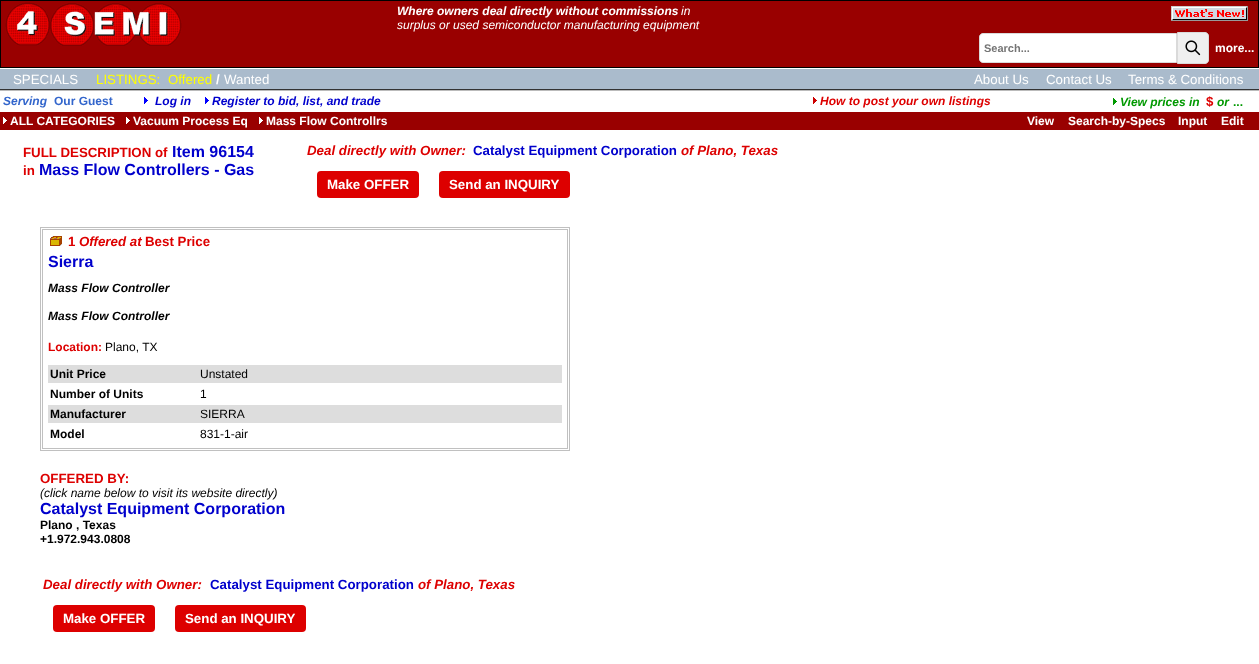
<svg xmlns="http://www.w3.org/2000/svg" width="1259" height="664" viewBox="0 0 1259 664">
  <rect width="100%" height="100%" fill="#ffffff"/>
  <rect x="0" y="0" width="1259" height="68" fill="#000000"/>
  <rect x="1" y="1" width="1257" height="66" fill="#990000"/>
  <image x="5" y="2" width="177" height="44" href="img1.png"/>
  <text x="397" y="15" font-family="Liberation Sans" font-size="12" font-weight="bold" font-style="italic" fill="#ffffff">Where owners deal directly without commissions</text>
  <text x="681" y="15" font-family="Liberation Sans" font-size="12" font-style="italic" fill="#ffffff">in</text>
  <text x="397" y="29" font-family="Liberation Sans" font-size="12" font-style="italic" fill="#ffffff">surplus or used semiconductor manufacturing equipment</text>
  <image x="1171" y="6" width="77" height="15" href="img2.png"/>
  <path d="M983 33.5H1176.5V62.5H983C981 62.5 979.5 61 979.5 59V37C979.5 35 981 33.5 983 33.5Z" fill="#ffffff" stroke="#dadada"/>
  <text x="984" y="52" font-family="Liberation Sans" font-size="11" font-weight="bold" fill="#757575">Search...</text>
  <path d="M1177.5 32.5H1205C1207 32.5 1208.5 34 1208.5 36V60C1208.5 62 1207 63.5 1205 63.5H1177.5Z" fill="#efefef" stroke="#dadada"/>
  <image x="1185" y="40" width="16" height="16" href="img3.png"/>
  <text x="1215" y="52" font-family="Liberation Sans" font-size="12" font-weight="bold" fill="#ffffff">more...</text>
  <rect x="0" y="69" width="1259" height="20" fill="#aabbcc"/>
  <text x="13" y="84" font-family="Liberation Sans" font-size="13.3" fill="#ffffff">SPECIALS</text>
  <text x="96" y="84" font-family="Liberation Sans" font-size="13.3" fill="#ffff00">LISTINGS:</text>
  <text x="168" y="84" font-family="Liberation Sans" font-size="13.3" fill="#ffff00">Offered</text>
  <text x="216" y="84" font-family="Liberation Sans" font-size="13.3" font-weight="bold" fill="#ffffff">/</text>
  <text x="224" y="84" font-family="Liberation Sans" font-size="13.3" fill="#ffffff">Wanted</text>
  <text x="974" y="84" font-family="Liberation Sans" font-size="13.3" fill="#ffffff">About Us</text>
  <text x="1046" y="84" font-family="Liberation Sans" font-size="13.3" fill="#ffffff">Contact Us</text>
  <text x="1128" y="84" font-family="Liberation Sans" font-size="13.3" fill="#ffffff">Terms &amp; Conditions</text>
  <rect x="0" y="89" width="1259" height="1" fill="#333333"/>
  <rect x="0" y="90" width="1259" height="1" fill="#bbbbbb"/>
  <text x="3" y="105" font-family="Liberation Sans" font-size="12" font-weight="bold" font-style="italic" fill="#3366cc">Serving</text>
  <text x="54" y="105" font-family="Liberation Sans" font-size="12" font-weight="bold" fill="#3366cc">Our Guest</text>
  <image x="144" y="97" width="4" height="7" href="img4.png"/>
  <text x="155" y="105" font-family="Liberation Sans" font-size="12" font-weight="bold" font-style="italic" fill="#0000cc">Log in</text>
  <image x="205" y="97" width="4" height="7" href="img4.png"/>
  <text x="212" y="105" font-family="Liberation Sans" font-size="12" font-weight="bold" font-style="italic" fill="#0000cc">Register to bid, list, and trade</text>
  <image x="813" y="97" width="4" height="7" href="img5.png"/>
  <text x="820" y="105" font-family="Liberation Sans" font-size="12" font-weight="bold" font-style="italic" fill="#dd0000">How to post your own listings</text>
  <image x="1113" y="98" width="4" height="7" href="img6.png"/>
  <text x="1120" y="106" font-family="Liberation Sans" font-size="12" font-weight="bold" font-style="italic" fill="#009900">View prices in</text>
  <text x="1206" y="106" font-family="Liberation Sans" font-size="13.3" font-weight="bold" fill="#dd0000">$</text>
  <text x="1217" y="106" font-family="Liberation Sans" font-size="12" font-weight="bold" font-style="italic" fill="#009900">or</text>
  <text x="1233" y="106" font-family="Liberation Sans" font-size="12" font-weight="bold" fill="#009900">...</text>
  <rect x="0" y="112" width="1259" height="18" fill="#990000"/>
  <image x="3" y="117" width="4" height="7" href="img7.png"/>
  <text x="10" y="125" font-family="Liberation Sans" font-size="12" font-weight="bold" fill="#ffffff">ALL CATEGORIES</text>
  <image x="126" y="117" width="4" height="7" href="img7.png"/>
  <text x="133" y="125" font-family="Liberation Sans" font-size="12" font-weight="bold" fill="#ffffff">Vacuum Process Eq</text>
  <image x="259" y="117" width="4" height="7" href="img7.png"/>
  <text x="266" y="125" font-family="Liberation Sans" font-size="12" font-weight="bold" fill="#ffffff">Mass Flow Controllrs</text>
  <text x="1027" y="125" font-family="Liberation Sans" font-size="12" font-weight="bold" fill="#ffffff">View</text>
  <text x="1068" y="125" font-family="Liberation Sans" font-size="12" font-weight="bold" fill="#ffffff">Search-by-Specs</text>
  <text x="1178" y="125" font-family="Liberation Sans" font-size="12" font-weight="bold" fill="#ffffff">Input</text>
  <text x="1221" y="125" font-family="Liberation Sans" font-size="12" font-weight="bold" fill="#ffffff">Edit</text>
  <text x="23" y="157" font-family="Liberation Sans" font-size="13.3" font-weight="bold" fill="#dd0000">FULL DESCRIPTION of</text>
  <text x="172" y="157" font-family="Liberation Sans" font-size="16" font-weight="bold" fill="#0000cc">Item 96154</text>
  <text x="23" y="175" font-family="Liberation Sans" font-size="13.3" font-weight="bold" fill="#dd0000">in</text>
  <text x="39" y="175" font-family="Liberation Sans" font-size="16" font-weight="bold" fill="#0000cc">Mass Flow Controllers - Gas</text>
  <text x="307" y="155" font-family="Liberation Sans" font-size="13.3" font-weight="bold" font-style="italic" fill="#dd0000">Deal directly with Owner:</text>
  <text x="473" y="155" font-family="Liberation Sans" font-size="13.3" font-weight="bold" fill="#0000cc">Catalyst Equipment Corporation</text>
  <text x="681" y="155" font-family="Liberation Sans" font-size="13.3" font-weight="bold" font-style="italic" fill="#dd0000">of Plano, Texas</text>
  <rect x="317" y="171" width="102" height="27" rx="4" fill="#dd0000"/>
  <text x="327" y="189" font-family="Liberation Sans" font-size="13.3" font-weight="bold" fill="#ffffff">Make OFFER</text>
  <rect x="439" y="171" width="131" height="27" rx="4" fill="#dd0000"/>
  <text x="449" y="189" font-family="Liberation Sans" font-size="13.3" font-weight="bold" fill="#ffffff">Send an INQUIRY</text>
  <rect x="40.5" y="227.5" width="529" height="223" fill="none" stroke="#c0c0c0"/>
  <rect x="42.5" y="229.5" width="525" height="219" fill="none" stroke="#c0c0c0"/>
  <image x="50" y="236" width="12" height="10" href="img8.png"/>
  <text x="68" y="246" font-family="Liberation Sans" font-size="13.3" font-weight="bold" fill="#dd0000">1</text>
  <text x="79" y="246" font-family="Liberation Sans" font-size="13.3" font-weight="bold" font-style="italic" fill="#dd0000">Offered at</text>
  <text x="145" y="246" font-family="Liberation Sans" font-size="13.3" font-weight="bold" fill="#dd0000">Best Price</text>
  <text x="48" y="267" font-family="Liberation Sans" font-size="16" font-weight="bold" fill="#0000cc">Sierra</text>
  <text x="48" y="292" font-family="Liberation Sans" font-size="12" font-weight="bold" font-style="italic" fill="#000000">Mass Flow Controller</text>
  <text x="48" y="320" font-family="Liberation Sans" font-size="12" font-weight="bold" font-style="italic" fill="#000000">Mass Flow Controller</text>
  <text x="48" y="351" font-family="Liberation Sans" font-size="12" font-weight="bold" fill="#dd0000">Location:</text>
  <text x="105" y="351" font-family="Liberation Sans" font-size="12" fill="#000000">Plano, TX</text>
  <rect x="48" y="365" width="514" height="18" fill="#dddddd"/>
  <text x="50" y="378" font-family="Liberation Sans" font-size="12" font-weight="bold" fill="#000000">Unit Price</text>
  <text x="200" y="378" font-family="Liberation Sans" font-size="12" fill="#000000">Unstated</text>
  <text x="50" y="398" font-family="Liberation Sans" font-size="12" font-weight="bold" fill="#000000">Number of Units</text>
  <text x="200" y="398" font-family="Liberation Sans" font-size="12" fill="#000000">1</text>
  <rect x="48" y="405" width="514" height="18" fill="#dddddd"/>
  <text x="50" y="418" font-family="Liberation Sans" font-size="12" font-weight="bold" fill="#000000">Manufacturer</text>
  <text x="200" y="418" font-family="Liberation Sans" font-size="12" fill="#000000">SIERRA</text>
  <text x="50" y="438" font-family="Liberation Sans" font-size="12" font-weight="bold" fill="#000000">Model</text>
  <text x="200" y="438" font-family="Liberation Sans" font-size="12" fill="#000000">831-1-air</text>
  <text x="40" y="483" font-family="Liberation Sans" font-size="13.3" font-weight="bold" fill="#dd0000">OFFERED BY:</text>
  <text x="40" y="497" font-family="Liberation Sans" font-size="12" font-style="italic" fill="#000000">(click name below to visit its website directly)</text>
  <text x="40" y="514" font-family="Liberation Sans" font-size="16" font-weight="bold" fill="#0000cc">Catalyst Equipment Corporation</text>
  <text x="40" y="529" font-family="Liberation Sans" font-size="12" font-weight="bold" fill="#000000">Plano , Texas</text>
  <text x="40" y="543" font-family="Liberation Sans" font-size="12" font-weight="bold" fill="#000000">+1.972.943.0808</text>
  <text x="43" y="589" font-family="Liberation Sans" font-size="13.3" font-weight="bold" font-style="italic" fill="#dd0000">Deal directly with Owner:</text>
  <text x="210" y="589" font-family="Liberation Sans" font-size="13.3" font-weight="bold" fill="#0000cc">Catalyst Equipment Corporation</text>
  <text x="418" y="589" font-family="Liberation Sans" font-size="13.3" font-weight="bold" font-style="italic" fill="#dd0000">of Plano, Texas</text>
  <rect x="53" y="605" width="102" height="27" rx="4" fill="#dd0000"/>
  <text x="63" y="623" font-family="Liberation Sans" font-size="13.3" font-weight="bold" fill="#ffffff">Make OFFER</text>
  <rect x="175" y="605" width="131" height="27" rx="4" fill="#dd0000"/>
  <text x="185" y="623" font-family="Liberation Sans" font-size="13.3" font-weight="bold" fill="#ffffff">Send an INQUIRY</text>
</svg>
